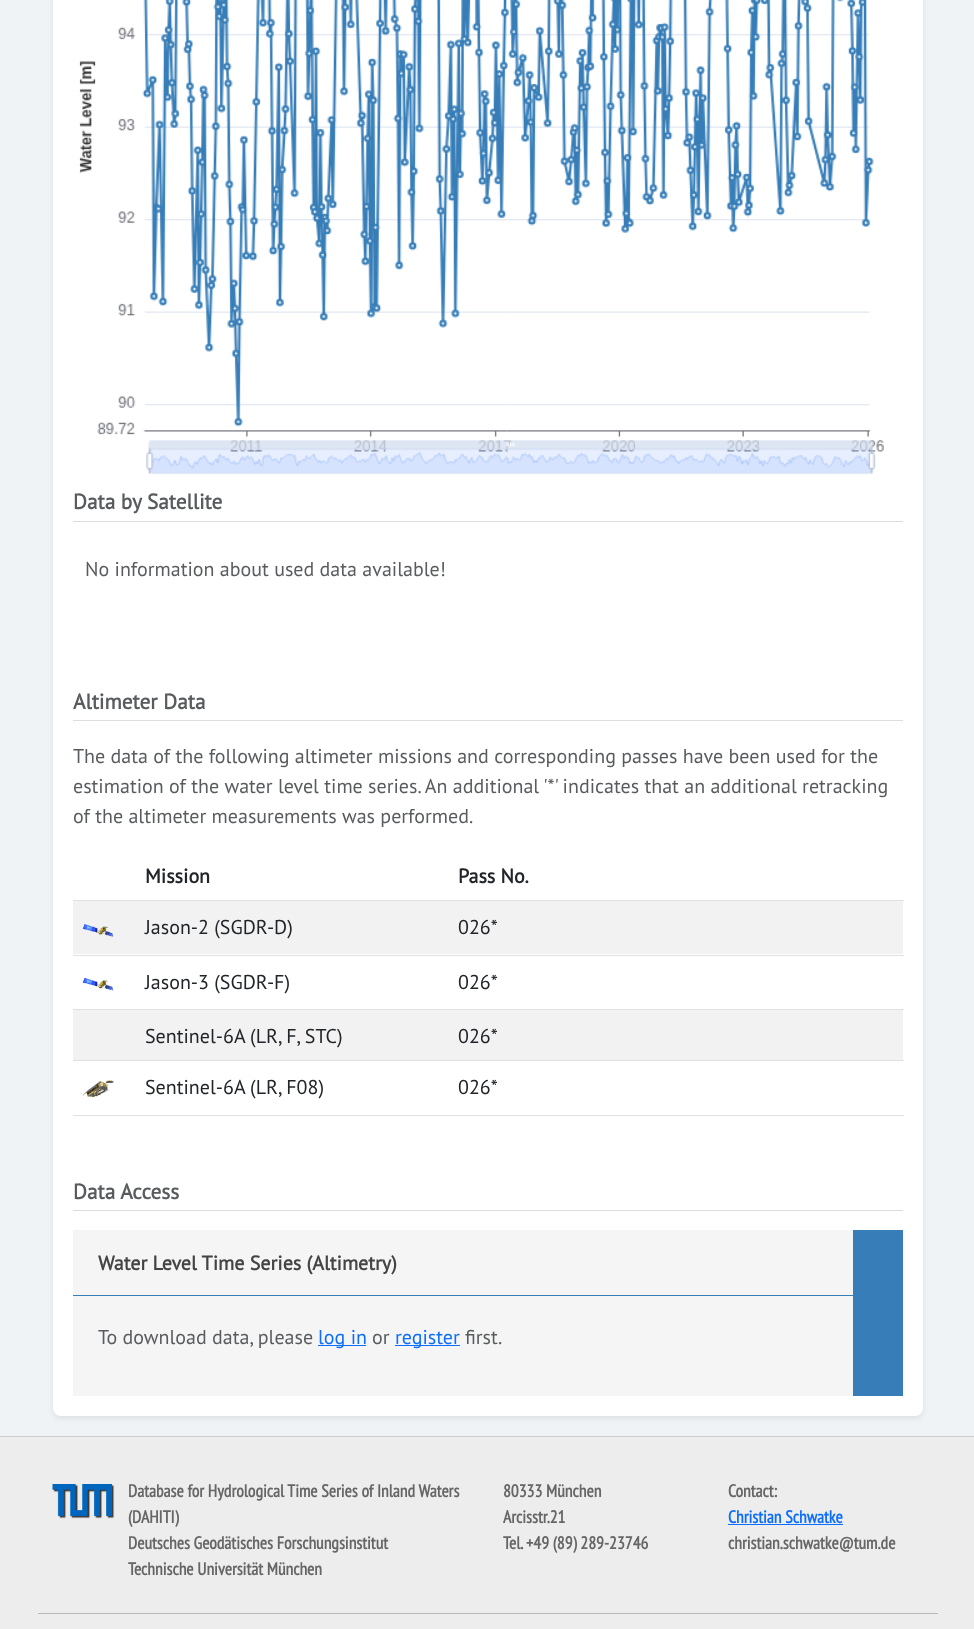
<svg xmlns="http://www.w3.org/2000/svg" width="974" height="1629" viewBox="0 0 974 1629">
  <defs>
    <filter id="blur1" x="-50%" y="-200%" width="200%" height="500%"><feGaussianBlur stdDeviation="2.5"/></filter>
  </defs>
  <rect width="100%" height="100%" fill="#f0f3f5"/>
  <rect x="53" y="-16" width="870" height="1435" rx="8" fill="#212529" fill-opacity="0.07" filter="url(#blur1)"/>
  <rect x="53" y="-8" width="870" height="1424" rx="8" fill="#ffffff"/>
  <image x="79" y="0" width="805" height="475" href="img1.png"/>
  <rect x="73" y="521" width="830" height="1" fill="#dedede"/>
  <text x="73" y="509" font-family="PT Sans" font-size="21.25" font-weight="bold" fill="#595c5f">Data by Satellite</text>
  <text x="85" y="576" font-family="PT Sans" font-size="20" fill="#595c5f">No information about used data available!</text>
  <rect x="73" y="720" width="830" height="1" fill="#dedede"/>
  <text x="73" y="709" font-family="PT Sans" font-size="21.25" font-weight="bold" fill="#595c5f">Altimeter Data</text>
  <text x="73" y="763" font-family="PT Sans" font-size="20" fill="#595c5f">The data of the following altimeter missions and corresponding passes have been used for the</text>
  <text x="73" y="793" font-family="PT Sans" font-size="20" fill="#595c5f">estimation of the water level time series. An additional '*' indicates that an additional retracking</text>
  <text x="73" y="823" font-family="PT Sans" font-size="20" fill="#595c5f">of the altimeter measurements was performed.</text>
  <text x="145" y="883" font-family="PT Sans" font-size="20" font-weight="bold" fill="#212529">Mission</text>
  <rect x="73" y="900" width="831" height="1" fill="#dee2e6"/>
  <text x="458" y="883" font-family="PT Sans" font-size="20" font-weight="bold" fill="#212529">Pass No.</text>
  <rect x="73" y="901" width="830" height="53" fill="#f2f2f2"/>
  <image x="82" y="924" width="32" height="13" href="img2.png"/>
  <text x="145" y="934" font-family="PT Sans" font-size="20" fill="#212529">Jason-2 (SGDR-D)</text>
  <rect x="73" y="955" width="831" height="1" fill="#dee2e6"/>
  <text x="458" y="934" font-family="PT Sans" font-size="20" fill="#212529">026*</text>
  <image x="82" y="977" width="32" height="14" href="img3.png"/>
  <text x="145" y="989" font-family="PT Sans" font-size="20" fill="#212529">Jason-3 (SGDR-F)</text>
  <rect x="73" y="1009" width="831" height="1" fill="#dee2e6"/>
  <text x="458" y="989" font-family="PT Sans" font-size="20" fill="#212529">026*</text>
  <rect x="73" y="1010" width="830" height="50" fill="#f2f2f2"/>
  <text x="145" y="1043" font-family="PT Sans" font-size="20" fill="#212529">Sentinel-6A (LR, F, STC)</text>
  <rect x="73" y="1060" width="831" height="1" fill="#dee2e6"/>
  <text x="458" y="1043" font-family="PT Sans" font-size="20" fill="#212529">026*</text>
  <image x="82" y="1080" width="32" height="19" href="img4.png"/>
  <text x="145" y="1094" font-family="PT Sans" font-size="20" fill="#212529">Sentinel-6A (LR, F08)</text>
  <rect x="73" y="1115" width="831" height="1" fill="#dee2e6"/>
  <text x="458" y="1094" font-family="PT Sans" font-size="20" fill="#212529">026*</text>
  <rect x="73" y="1210" width="830" height="1" fill="#dedede"/>
  <text x="73" y="1199" font-family="PT Sans" font-size="21.25" font-weight="bold" fill="#595c5f">Data Access</text>
  <rect x="73" y="1230" width="780" height="166" fill="#f5f5f5"/>
  <rect x="853" y="1230" width="50" height="166" fill="#377eb8"/>
  <rect x="73" y="1295" width="781" height="1" fill="#377eb8"/>
  <text x="98" y="1270" font-family="PT Sans" font-size="20" font-weight="bold" fill="#444444">Water Level Time Series (Altimetry)</text>
  <text x="98" y="1344" font-family="PT Sans" font-size="20" fill="#595c5f">To download data, please</text>
  <rect x="318" y="1345" width="48" height="1" fill="#0d6efd"/>
  <text x="318" y="1344" font-family="PT Sans" font-size="20" fill="#0d6efd">log in</text>
  <text x="372" y="1344" font-family="PT Sans" font-size="20" fill="#595c5f">or</text>
  <rect x="395" y="1345" width="65" height="1" fill="#0d6efd"/>
  <text x="395" y="1344" font-family="PT Sans" font-size="20" fill="#0d6efd">register</text>
  <text x="465" y="1344" font-family="PT Sans" font-size="20" fill="#595c5f">first.</text>
  <rect x="0" y="1437" width="974" height="192" fill="#ededed"/>
  <rect x="0" y="1436" width="974" height="1" fill="#cccccc"/>
  <image x="52" y="1484" width="63" height="35" href="img5.png"/>
  <text x="128" y="1497" font-family="PT Sans Narrow" font-size="17.5" font-weight="bold" fill="#666666">Database for Hydrological Time Series of Inland Waters</text>
  <text x="128" y="1523" font-family="PT Sans Narrow" font-size="17.5" font-weight="bold" fill="#666666">(DAHITI)</text>
  <text x="128" y="1549" font-family="PT Sans Narrow" font-size="17.5" font-weight="bold" fill="#666666">Deutsches Geodätisches Forschungsinstitut</text>
  <text x="128" y="1575" font-family="PT Sans Narrow" font-size="17.5" font-weight="bold" fill="#666666">Technische Universität München</text>
  <text x="503" y="1497" font-family="PT Sans Narrow" font-size="17.5" font-weight="bold" fill="#666666">80333 München</text>
  <text x="503" y="1523" font-family="PT Sans Narrow" font-size="17.5" font-weight="bold" fill="#666666">Arcisstr.21</text>
  <text x="503" y="1549" font-family="PT Sans Narrow" font-size="17.5" font-weight="bold" fill="#666666">Tel. +49 (89) 289-23746</text>
  <text x="728" y="1497" font-family="PT Sans Narrow" font-size="17.5" font-weight="bold" fill="#666666">Contact:</text>
  <text x="728" y="1523" font-family="PT Sans Narrow" font-size="17.5" font-weight="bold" fill="#0d6efd">Christian Schwatke</text>
  <rect x="728" y="1524" width="115" height="1" fill="#0d6efd"/>
  <text x="728" y="1549" font-family="PT Sans Narrow" font-size="17.5" font-weight="bold" fill="#666666">christian.schwatke@tum.de</text>
  <rect x="38" y="1613" width="900" height="1" fill="#babbbc"/>
</svg>
